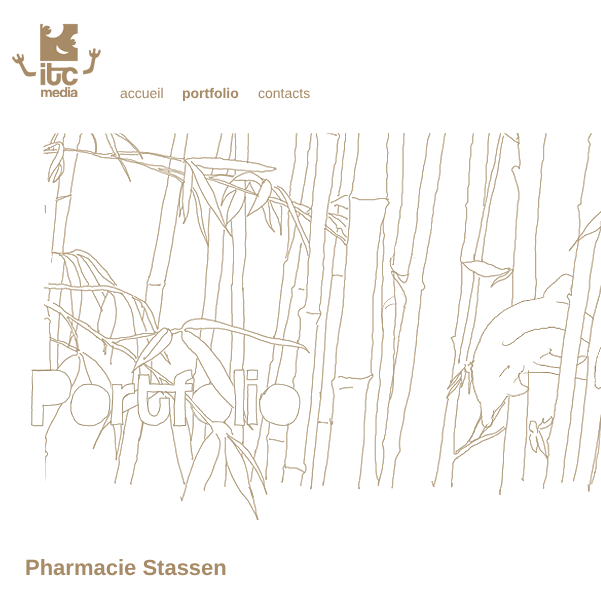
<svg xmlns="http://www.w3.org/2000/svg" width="601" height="594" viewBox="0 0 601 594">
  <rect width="100%" height="100%" fill="#ffffff"/>
  <image x="31" y="133" width="570" height="387" href="img1.png"/>
  <image x="12" y="23" width="89" height="74" href="img2.png"/>
  <text x="120" y="98" font-family="Liberation Sans" font-size="14" fill="#a78a66">accueil</text>
  <text x="182" y="98" font-family="Liberation Sans" font-size="14" font-weight="bold" fill="#a78a66">portfolio</text>
  <text x="258" y="98" font-family="Liberation Sans" font-size="14" fill="#a78a66">contacts</text>
  <text x="25" y="575" font-family="Liberation Sans" font-size="22" font-weight="bold" fill="#a78a66">Pharmacie Stassen</text>
</svg>
